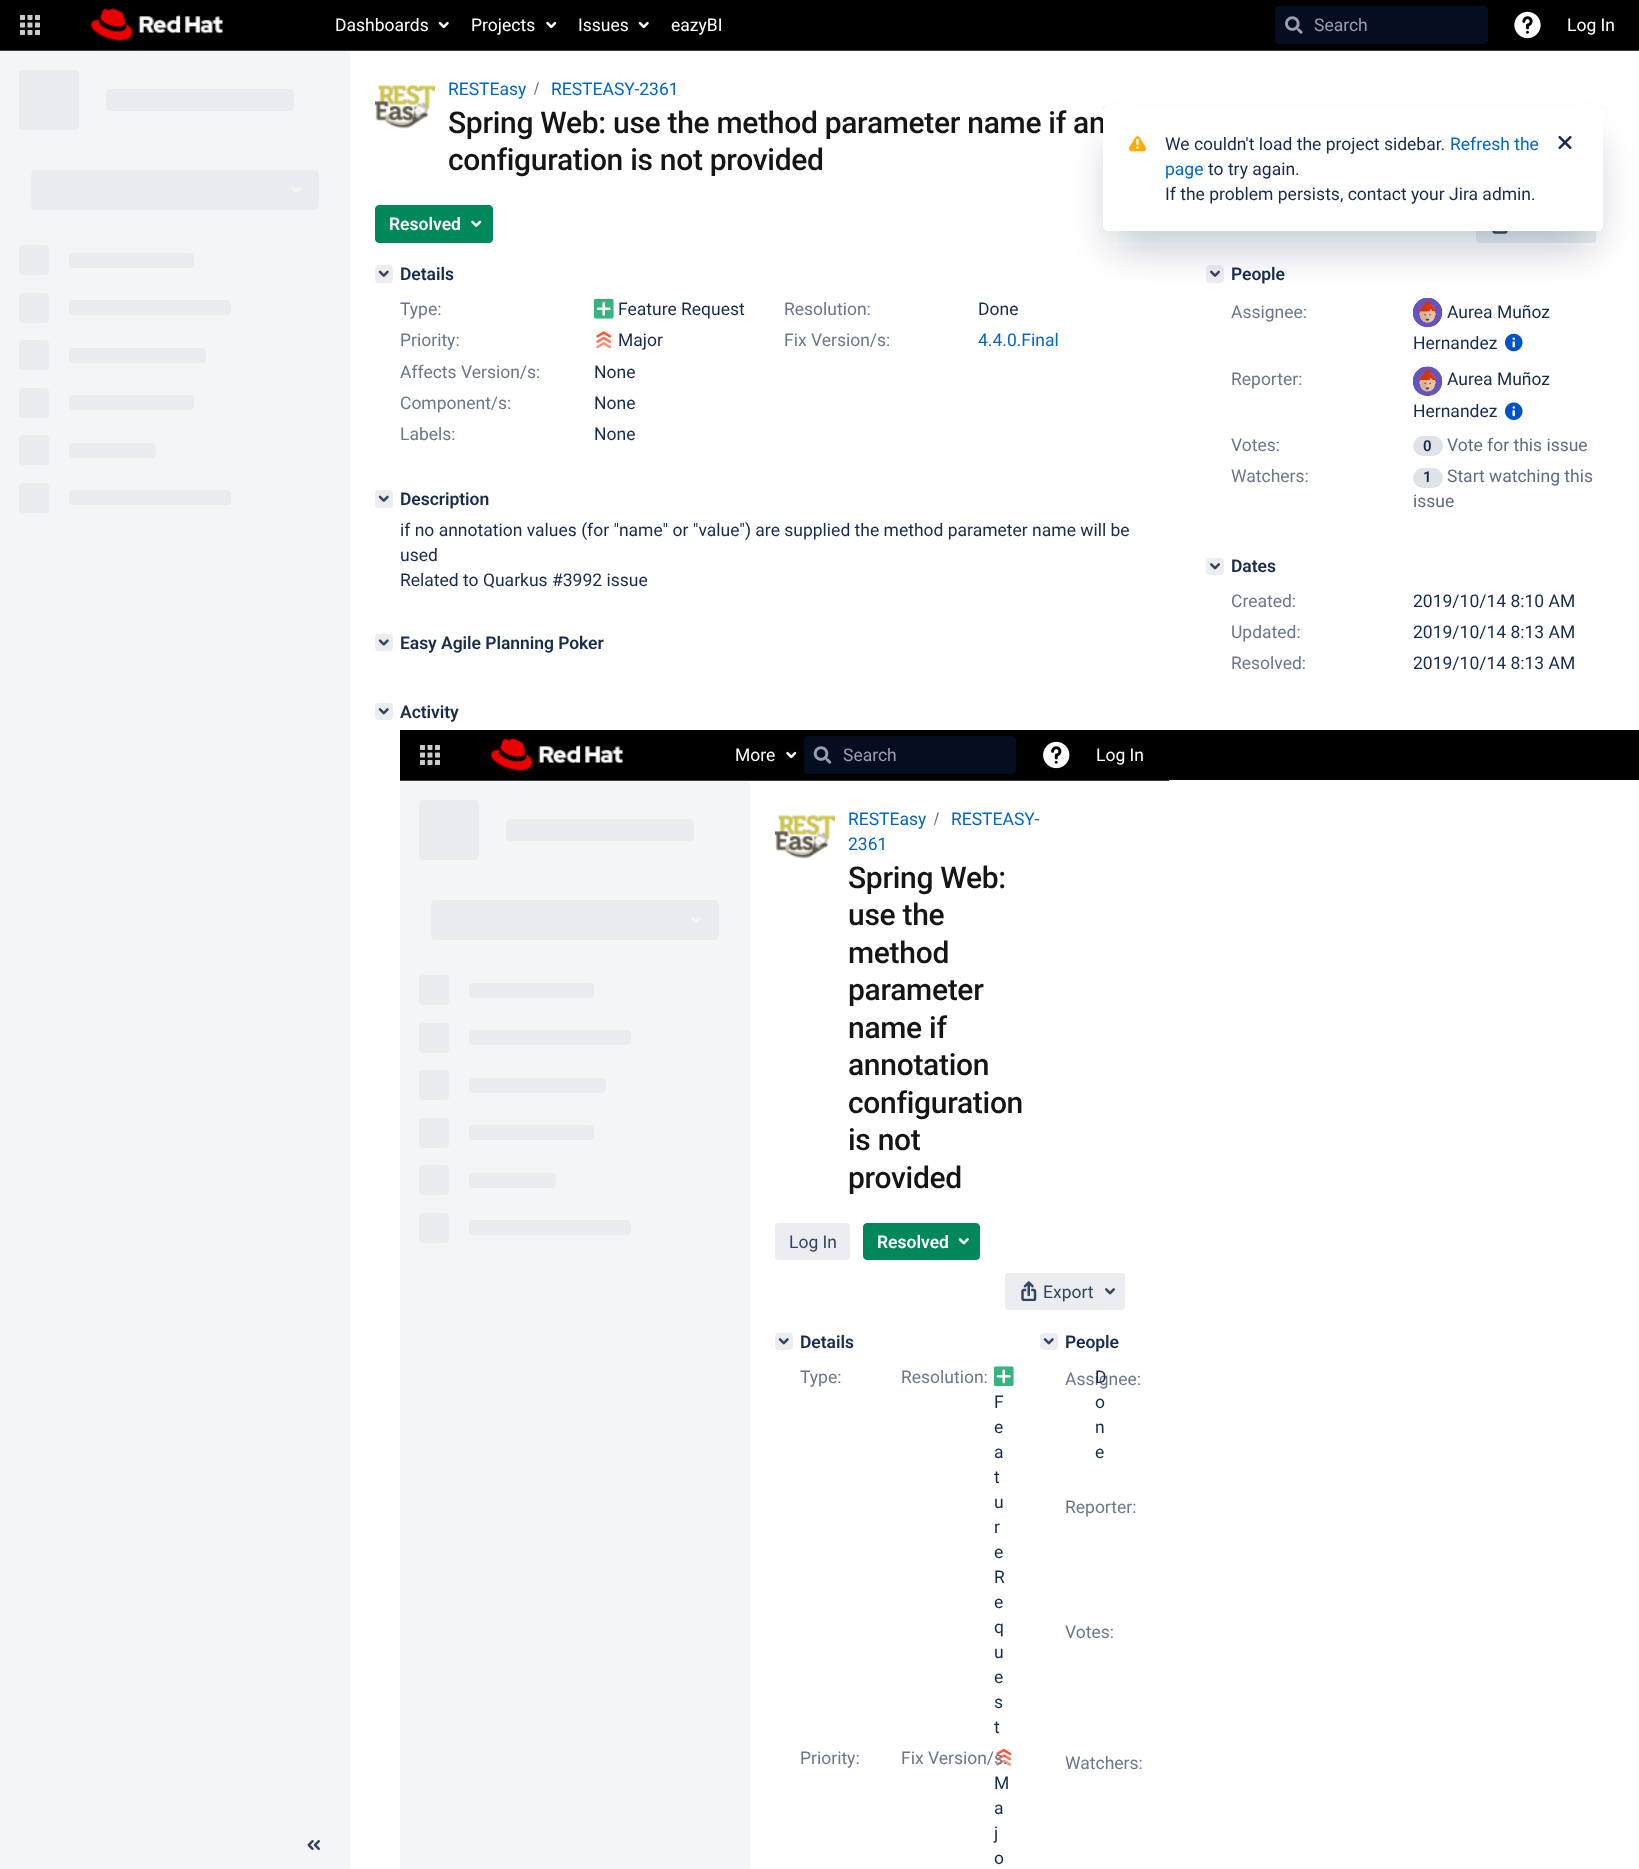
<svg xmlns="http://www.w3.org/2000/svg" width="1639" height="1869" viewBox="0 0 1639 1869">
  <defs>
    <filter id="blur1" x="-50%" y="-200%" width="200%" height="500%"><feGaussianBlur stdDeviation="0.5"/></filter>
    <filter id="blur2" x="-50%" y="-200%" width="200%" height="500%"><feGaussianBlur stdDeviation="20"/></filter>
  </defs>
  <rect width="100%" height="100%" fill="#ffffff"/>
  <rect x="0" y="0" width="1639" height="50" fill="#000000"/>
  <rect x="0" y="50" width="1639" height="1" fill="#3c3f42"/>
  <image x="20" y="15" width="20" height="20" href="img1.png"/>
  <image x="91" y="8" width="132" height="33" href="img2.png"/>
  <text x="335" y="31" font-family="Roboto" font-size="17.5" fill="#ffffff">Dashboards</text>
  <image x="438" y="21" width="11" height="8" href="img3.png"/>
  <text x="471" y="31" font-family="Roboto" font-size="17.5" fill="#ffffff">Projects</text>
  <image x="546" y="21" width="11" height="8" href="img4.png"/>
  <text x="578" y="31" font-family="Roboto" font-size="17.5" fill="#ffffff">Issues</text>
  <image x="638" y="21" width="11" height="8" href="img3.png"/>
  <text x="671" y="31" font-family="Roboto" font-size="17.5" fill="#ffffff">eazyBI</text>
  <rect x="1275" y="6" width="213" height="38" rx="4" fill="#040e20"/>
  <image x="1285" y="16" width="18" height="18" href="img5.png"/>
  <text x="1314" y="31" font-family="Roboto" font-size="17.5" fill="#97a0af">Search</text>
  <image x="1514" y="11" width="27" height="28" href="img6.png"/>
  <text x="1567" y="31" font-family="Roboto" font-size="17.5" fill="#ffffff">Log In</text>
  <rect x="0" y="51" width="350" height="1818" fill="#f4f5f7"/>
  <image x="19" y="70" width="300" height="443" href="img7.png"/>
  <image x="307" y="1840" width="13" height="10" href="img8.png"/>
  <image x="375" y="84" width="60" height="45" href="img9.png"/>
  <text x="448" y="95" font-family="Roboto" font-size="17.5" fill="#0066cc">RESTEasy</text>
  <path d="M535 95L539 82.5H537.5L534 95Z" fill="#707070"/>
  <text x="551" y="95" font-family="Roboto" font-size="17.5" fill="#0066cc">RESTEASY-2361</text>
  <text x="448" y="133" font-family="Roboto" font-size="30" font-weight="500" letter-spacing="-0.3" fill="#151515">Spring Web: use the method parameter name if an</text>
  <text x="448" y="170" font-family="Roboto" font-size="30" font-weight="500" letter-spacing="-0.3" fill="#151515">configuration is not provided</text>
  <rect x="375.5" y="205.5" width="117" height="37" rx="3.5" fill="#00875a" stroke="#00875a"/>
  <text x="389" y="230" font-family="Roboto" font-size="17.5" font-weight="600" fill="#ffffff">Resolved</text>
  <image x="471" y="220" width="11" height="7" href="img10.png"/>
  <rect x="1476" y="205" width="120" height="38" rx="4" fill="#ebedf0"/>
  <image x="1492" y="231" width="16" height="3" href="img11.png"/>
  <rect x="375" y="265" width="18" height="18" rx="4" fill="#ebedf0"/>
  <image x="378" y="270" width="11" height="7" href="img12.png"/>
  <text x="400" y="280" font-family="Roboto" font-size="17.5" font-weight="600" letter-spacing="-0.05" fill="#172b4d">Details</text>
  <text x="400" y="315" font-family="Roboto" font-size="17.5" fill="#6b778c">Type:</text>
  <image x="594" y="299" width="20" height="20" href="img13.png"/>
  <text x="618" y="315" font-family="Roboto" font-size="17.5" fill="#172b4d">Feature Request</text>
  <text x="784" y="315" font-family="Roboto" font-size="17.5" fill="#6b778c">Resolution:</text>
  <text x="978" y="315" font-family="Roboto" font-size="17.5" fill="#172b4d">Done</text>
  <text x="400" y="346" font-family="Roboto" font-size="17.5" fill="#6b778c">Priority:</text>
  <image x="596" y="331" width="16" height="18" href="img14.png"/>
  <text x="618" y="346" font-family="Roboto" font-size="17.5" fill="#172b4d">Major</text>
  <text x="784" y="346" font-family="Roboto" font-size="17.5" fill="#6b778c">Fix Version/s:</text>
  <text x="978" y="346" font-family="Roboto" font-size="17.5" fill="#0066cc">4.4.0.Final</text>
  <text x="400" y="378" font-family="Roboto" font-size="17.5" fill="#6b778c">Affects Version/s:</text>
  <text x="594" y="378" font-family="Roboto" font-size="17.5" fill="#172b4d">None</text>
  <text x="400" y="409" font-family="Roboto" font-size="17.5" fill="#6b778c">Component/s:</text>
  <text x="594" y="409" font-family="Roboto" font-size="17.5" fill="#172b4d">None</text>
  <text x="400" y="440" font-family="Roboto" font-size="17.5" fill="#6b778c">Labels:</text>
  <text x="594" y="440" font-family="Roboto" font-size="17.5" fill="#172b4d">None</text>
  <rect x="375" y="490" width="18" height="18" rx="4" fill="#ebedf0"/>
  <image x="378" y="495" width="11" height="7" href="img12.png"/>
  <text x="400" y="505" font-family="Roboto" font-size="17.5" font-weight="600" letter-spacing="-0.05" fill="#172b4d">Description</text>
  <text x="400" y="536" font-family="Roboto" font-size="17.5" fill="#172b4d">if no annotation values (for "name" or "value") are supplied the method parameter name will be</text>
  <text x="400" y="561" font-family="Roboto" font-size="17.5" fill="#172b4d">used</text>
  <text x="400" y="586" font-family="Roboto" font-size="17.5" fill="#172b4d">Related to Quarkus #3992 issue</text>
  <rect x="375" y="634" width="18" height="17" rx="4" fill="#ebedf0"/>
  <image x="378" y="639" width="11" height="7" href="img15.png"/>
  <text x="400" y="649" font-family="Roboto" font-size="17.5" font-weight="600" letter-spacing="-0.05" fill="#172b4d">Easy Agile Planning Poker</text>
  <rect x="375" y="703" width="18" height="17" rx="4" fill="#ebedf0"/>
  <image x="378" y="708" width="11" height="7" href="img16.png"/>
  <text x="400" y="718" font-family="Roboto" font-size="17.5" font-weight="600" letter-spacing="-0.05" fill="#172b4d">Activity</text>
  <rect x="400" y="730" width="1239" height="50" fill="#000000"/>
  <rect x="400" y="780" width="769" height="1" fill="#3c3f42"/>
  <image x="420" y="745" width="20" height="20" href="img1.png"/>
  <image x="491" y="738" width="132" height="33" href="img17.png"/>
  <text x="735" y="761" font-family="Roboto" font-size="17.5" fill="#ffffff">More</text>
  <image x="786" y="751" width="11" height="8" href="img4.png"/>
  <rect x="804" y="736" width="212" height="38" rx="4" fill="#040e20"/>
  <image x="813" y="746" width="19" height="18" href="img18.png"/>
  <text x="843" y="761" font-family="Roboto" font-size="17.5" fill="#97a0af">Search</text>
  <image x="1043" y="741" width="27" height="28" href="img19.png"/>
  <text x="1096" y="761" font-family="Roboto" font-size="17.5" fill="#ffffff">Log In</text>
  <rect x="400" y="781" width="350" height="1088" fill="#f4f5f7"/>
  <image x="419" y="800" width="300" height="443" href="img7.png"/>
  <image x="775" y="814" width="60" height="45" href="img20.png"/>
  <text x="848" y="825" font-family="Roboto" font-size="17.5" fill="#0066cc">RESTEasy</text>
  <path d="M935 825L939 812.5H937.5L934 825Z" fill="#707070"/>
  <text x="951" y="825" font-family="Roboto" font-size="17.5" fill="#0066cc">RESTEASY-</text>
  <text x="848" y="850" font-family="Roboto" font-size="17.5" fill="#0066cc">2361</text>
  <text x="848" y="888" font-family="Roboto" font-size="30" font-weight="500" letter-spacing="-0.3" fill="#151515">Spring Web:</text>
  <text x="848" y="925" font-family="Roboto" font-size="30" font-weight="500" letter-spacing="-0.3" fill="#151515">use the</text>
  <text x="848" y="963" font-family="Roboto" font-size="30" font-weight="500" letter-spacing="-0.3" fill="#151515">method</text>
  <text x="848" y="1000" font-family="Roboto" font-size="30" font-weight="500" letter-spacing="-0.3" fill="#151515">parameter</text>
  <text x="848" y="1038" font-family="Roboto" font-size="30" font-weight="500" letter-spacing="-0.3" fill="#151515">name if</text>
  <text x="848" y="1075" font-family="Roboto" font-size="30" font-weight="500" letter-spacing="-0.3" fill="#151515">annotation</text>
  <text x="848" y="1113" font-family="Roboto" font-size="30" font-weight="500" letter-spacing="-0.3" fill="#151515">configuration</text>
  <text x="848" y="1150" font-family="Roboto" font-size="30" font-weight="500" letter-spacing="-0.3" fill="#151515">is not</text>
  <text x="848" y="1188" font-family="Roboto" font-size="30" font-weight="500" letter-spacing="-0.3" fill="#151515">provided</text>
  <rect x="775" y="1223" width="75" height="37" rx="4" fill="#ebedf0"/>
  <text x="789" y="1248" font-family="Roboto" font-size="17.5" fill="#344563">Log In</text>
  <rect x="863.5" y="1223.5" width="116" height="36" rx="3.5" fill="#00875a" stroke="#00875a"/>
  <text x="877" y="1248" font-family="Roboto" font-size="17.5" font-weight="600" fill="#ffffff">Resolved</text>
  <image x="958" y="1238" width="11" height="7" href="img21.png"/>
  <rect x="1005" y="1273" width="120" height="37" rx="4" fill="#ebedf0"/>
  <image x="1021" y="1281" width="16" height="20" href="img22.png"/>
  <text x="1043" y="1298" font-family="Roboto" font-size="17.5" fill="#344563">Export</text>
  <image x="1105" y="1288" width="10" height="7" href="img23.png"/>
  <rect x="775" y="1333" width="18" height="17" rx="4" fill="#ebedf0"/>
  <image x="778" y="1338" width="11" height="7" href="img16.png"/>
  <text x="800" y="1348" font-family="Roboto" font-size="17.5" font-weight="600" letter-spacing="-0.05" fill="#172b4d">Details</text>
  <text x="901" y="1383" font-family="Roboto" font-size="17.5" fill="#6b778c">Resolution:</text>
  <text x="1065" y="1385" font-family="Roboto" font-size="17.5" fill="#6b778c">Assignee:</text>
  <text x="1095" y="1383" font-family="Roboto" font-size="17.5" fill="#172b4d">D</text>
  <text x="1095" y="1408" font-family="Roboto" font-size="17.5" fill="#172b4d">o</text>
  <text x="1095" y="1433" font-family="Roboto" font-size="17.5" fill="#172b4d">n</text>
  <text x="1095" y="1458" font-family="Roboto" font-size="17.5" fill="#172b4d">e</text>
  <text x="800" y="1383" font-family="Roboto" font-size="17.5" fill="#6b778c">Type:</text>
  <image x="994" y="1366" width="20" height="20" href="img24.png"/>
  <text x="994" y="1408" font-family="Roboto" font-size="17.5" fill="#172b4d">F</text>
  <text x="994" y="1433" font-family="Roboto" font-size="17.5" fill="#172b4d">e</text>
  <text x="994" y="1458" font-family="Roboto" font-size="17.5" fill="#172b4d">a</text>
  <text x="994" y="1483" font-family="Roboto" font-size="17.5" fill="#172b4d">t</text>
  <text x="994" y="1508" font-family="Roboto" font-size="17.5" fill="#172b4d">u</text>
  <text x="994" y="1533" font-family="Roboto" font-size="17.5" fill="#172b4d">r</text>
  <text x="994" y="1558" font-family="Roboto" font-size="17.5" fill="#172b4d">e</text>
  <text x="994" y="1583" font-family="Roboto" font-size="17.5" fill="#172b4d">R</text>
  <text x="994" y="1608" font-family="Roboto" font-size="17.5" fill="#172b4d">e</text>
  <text x="994" y="1633" font-family="Roboto" font-size="17.5" fill="#172b4d">q</text>
  <text x="994" y="1658" font-family="Roboto" font-size="17.5" fill="#172b4d">u</text>
  <text x="994" y="1683" font-family="Roboto" font-size="17.5" fill="#172b4d">e</text>
  <text x="994" y="1708" font-family="Roboto" font-size="17.5" fill="#172b4d">s</text>
  <text x="994" y="1733" font-family="Roboto" font-size="17.5" fill="#172b4d">t</text>
  <text x="800" y="1764" font-family="Roboto" font-size="17.5" fill="#6b778c">Priority:</text>
  <image x="996" y="1748" width="16" height="18" href="img25.png"/>
  <text x="994" y="1789" font-family="Roboto" font-size="17.5" fill="#172b4d">M</text>
  <text x="994" y="1814" font-family="Roboto" font-size="17.5" fill="#172b4d">a</text>
  <text x="994" y="1839" font-family="Roboto" font-size="17.5" fill="#172b4d">j</text>
  <text x="994" y="1864" font-family="Roboto" font-size="17.5" fill="#172b4d">o</text>
  <text x="901" y="1764" font-family="Roboto" font-size="17.5" fill="#6b778c">Fix Version/s:</text>
  <rect x="1040" y="1333" width="18" height="17" rx="4" fill="#ebedf0"/>
  <image x="1043" y="1338" width="11" height="7" href="img16.png"/>
  <text x="1065" y="1348" font-family="Roboto" font-size="17.5" font-weight="600" letter-spacing="-0.05" fill="#172b4d">People</text>
  <text x="1065" y="1513" font-family="Roboto" font-size="17.5" fill="#6b778c">Reporter:</text>
  <text x="1065" y="1638" font-family="Roboto" font-size="17.5" fill="#6b778c">Votes:</text>
  <text x="1065" y="1769" font-family="Roboto" font-size="17.5" fill="#6b778c">Watchers:</text>
  <rect x="1206" y="265" width="18" height="18" rx="4" fill="#ebedf0"/>
  <image x="1210" y="270" width="10" height="7" href="img26.png"/>
  <text x="1231" y="280" font-family="Roboto" font-size="17.5" font-weight="600" letter-spacing="-0.05" fill="#172b4d">People</text>
  <text x="1231" y="318" font-family="Roboto" font-size="17.5" fill="#6b778c">Assignee:</text>
  <image x="1413" y="298" width="30" height="30" href="img27.png"/>
  <text x="1447" y="318" font-family="Roboto" font-size="17.5" fill="#172b4d">Aurea Muñoz</text>
  <text x="1413" y="349" font-family="Roboto" font-size="17.5" fill="#172b4d">Hernandez</text>
  <image x="1505" y="333" width="18" height="19" href="img28.png"/>
  <text x="1231" y="385" font-family="Roboto" font-size="17.5" fill="#6b778c">Reporter:</text>
  <image x="1413" y="366" width="30" height="30" href="img29.png"/>
  <text x="1447" y="385" font-family="Roboto" font-size="17.5" fill="#172b4d">Aurea Muñoz</text>
  <text x="1413" y="417" font-family="Roboto" font-size="17.5" fill="#172b4d">Hernandez</text>
  <image x="1505" y="402" width="18" height="18" href="img30.png"/>
  <text x="1231" y="451" font-family="Roboto" font-size="17.5" fill="#6b778c">Votes:</text>
  <rect x="1413" y="436" width="30" height="20" rx="10" fill="#dfe2e6"/>
  <text x="1423" y="451" font-family="Roboto" font-size="15" font-weight="600" fill="#172b4d">0</text>
  <text x="1447" y="451" font-family="Roboto" font-size="17.5" fill="#5e6c84">Vote for this issue</text>
  <text x="1231" y="482" font-family="Roboto" font-size="17.5" fill="#6b778c">Watchers:</text>
  <rect x="1413" y="468" width="30" height="20" rx="10" fill="#dfe2e6"/>
  <text x="1423" y="482" font-family="Roboto" font-size="15" font-weight="600" fill="#172b4d">1</text>
  <text x="1447" y="482" font-family="Roboto" font-size="17.5" fill="#5e6c84">Start watching this</text>
  <text x="1413" y="507" font-family="Roboto" font-size="17.5" fill="#5e6c84">issue</text>
  <rect x="1206" y="558" width="18" height="17" rx="4" fill="#ebedf0"/>
  <image x="1210" y="563" width="10" height="7" href="img31.png"/>
  <text x="1231" y="572" font-family="Roboto" font-size="17.5" font-weight="600" letter-spacing="-0.05" fill="#172b4d">Dates</text>
  <text x="1231" y="607" font-family="Roboto" font-size="17.5" fill="#6b778c">Created:</text>
  <text x="1413" y="607" font-family="Roboto" font-size="17.5" fill="#172b4d">2019/10/14 8:10 AM</text>
  <text x="1231" y="638" font-family="Roboto" font-size="17.5" fill="#6b778c">Updated:</text>
  <text x="1413" y="638" font-family="Roboto" font-size="17.5" fill="#172b4d">2019/10/14 8:13 AM</text>
  <text x="1231" y="669" font-family="Roboto" font-size="17.5" fill="#6b778c">Resolved:</text>
  <text x="1413" y="669" font-family="Roboto" font-size="17.5" fill="#172b4d">2019/10/14 8:13 AM</text>
  <rect x="1103" y="106" width="500" height="125" rx="4" fill="#091e42" fill-opacity="0.25" filter="url(#blur1)"/>
  <rect x="1113" y="141" width="480" height="105" fill="#091e42" fill-opacity="0.25" filter="url(#blur2)"/>
  <rect x="1103" y="106" width="500" height="125" rx="4" fill="#ffffff"/>
  <image x="1128" y="136" width="19" height="16" href="img32.png"/>
  <text x="1165" y="150" font-family="Roboto" font-size="17.5" fill="#172b4d">We couldn't load the project sidebar.</text>
  <text x="1450" y="150" font-family="Roboto" font-size="17.5" fill="#0066cc">Refresh the</text>
  <image x="1558" y="136" width="14" height="13" href="img33.png"/>
  <text x="1165" y="175" font-family="Roboto" font-size="17.5" fill="#0066cc">page</text>
  <text x="1208" y="175" font-family="Roboto" font-size="17.5" fill="#172b4d">to try again.</text>
  <text x="1165" y="200" font-family="Roboto" font-size="17.5" fill="#172b4d">If the problem persists, contact your Jira admin.</text>
</svg>
